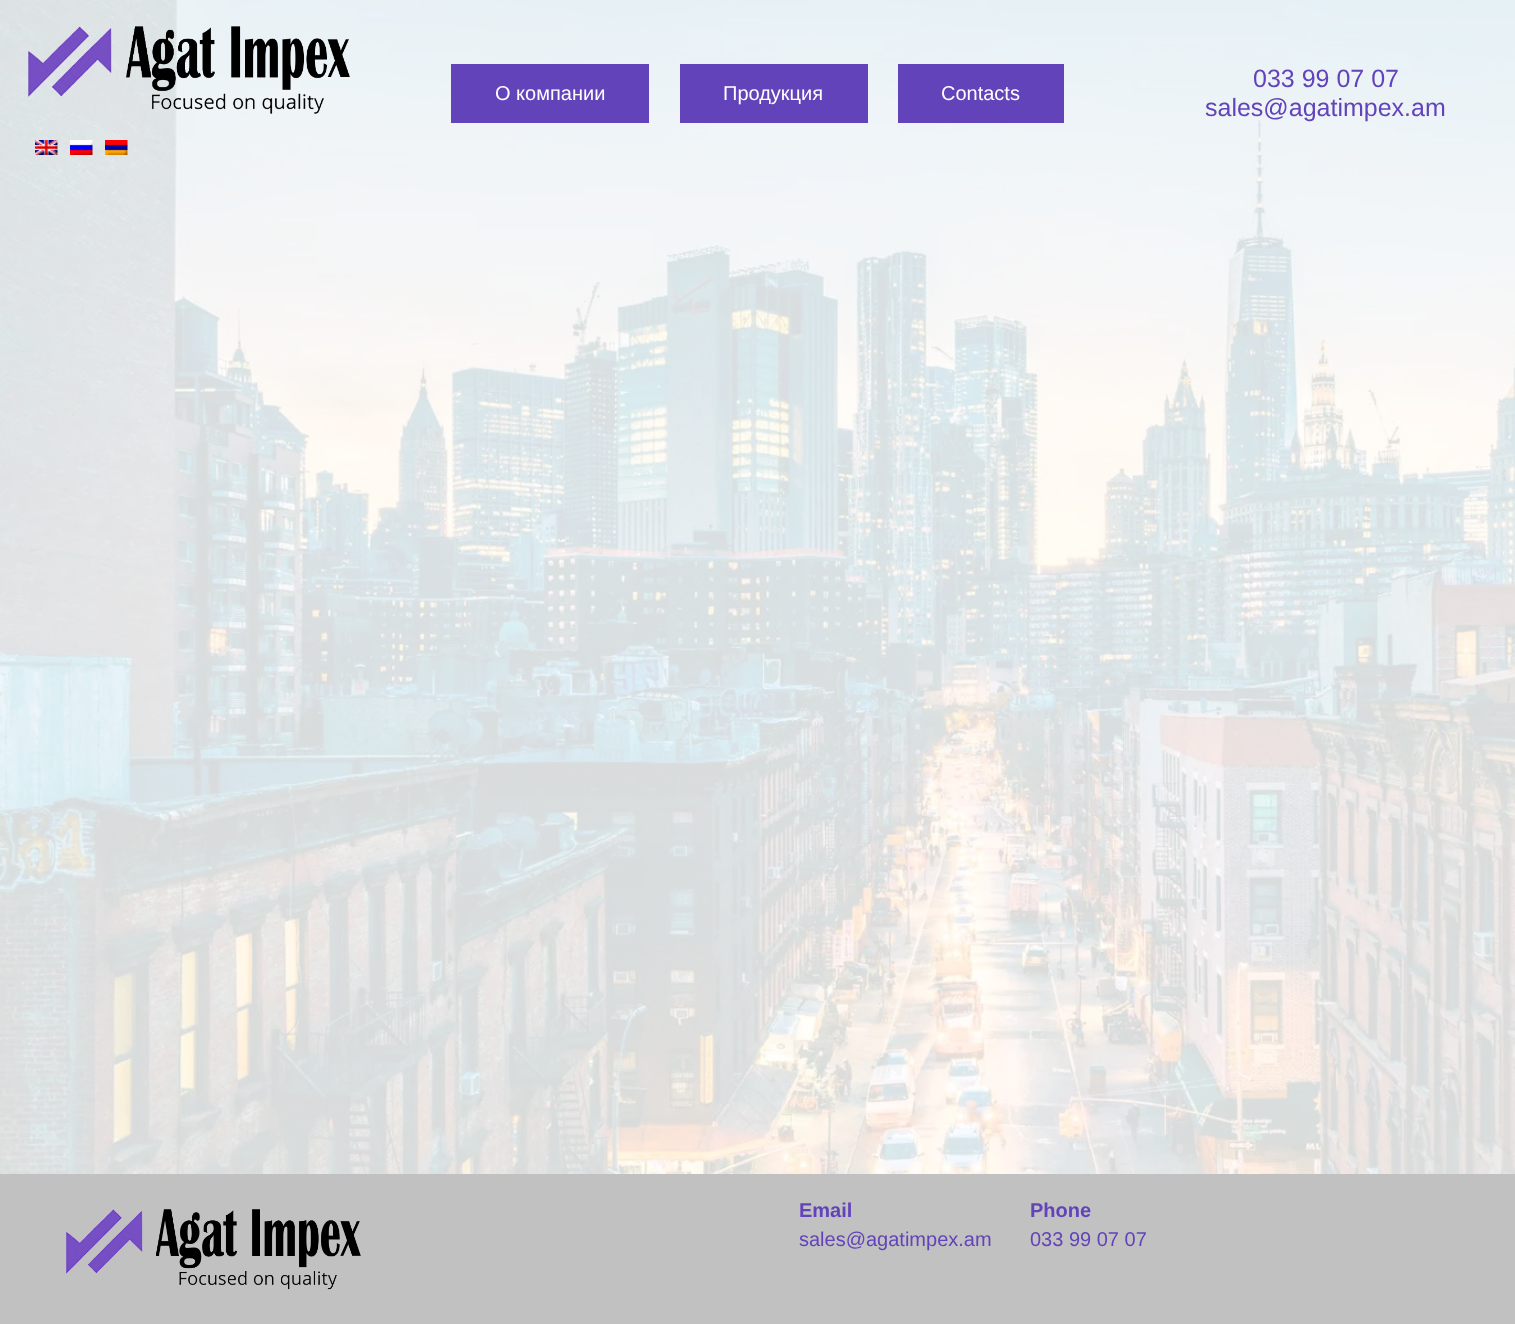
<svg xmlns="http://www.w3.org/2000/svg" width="1515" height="1324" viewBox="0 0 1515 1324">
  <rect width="100%" height="100%" fill="#ffffff"/>
  <image x="0" y="0" width="1515" height="1174" href="img1.png"/>
  <image x="28" y="26" width="322" height="88" href="img2.png"/>
  <image x="35" y="140" width="23" height="15" href="img3.png"/>
  <image x="70" y="140" width="23" height="15" href="img4.png"/>
  <image x="105" y="140" width="23" height="15" href="img5.png"/>
  <rect x="451" y="64" width="198" height="59" fill="#6243ba"/>
  <text x="495" y="100" font-family="Liberation Sans" font-size="20" fill="#ffffff">О компании</text>
  <rect x="680" y="64" width="188" height="59" fill="#6243ba"/>
  <text x="723" y="100" font-family="Liberation Sans" font-size="20" fill="#ffffff">Продукция</text>
  <rect x="898" y="64" width="166" height="59" fill="#6243ba"/>
  <text x="941" y="100" font-family="Liberation Sans" font-size="20" fill="#ffffff">Contacts</text>
  <text x="1253" y="87" font-family="Liberation Sans" font-size="25" fill="#6243ba">033 99 07 07</text>
  <text x="1205" y="116" font-family="Liberation Sans" font-size="25" fill="#6243ba">sales@agatimpex.am</text>
  <rect x="0" y="1174" width="1515" height="150" fill="#c1c1c1"/>
  <image x="66" y="1209" width="295" height="81" href="img6.png"/>
  <text x="799" y="1217" font-family="Liberation Sans" font-size="20" font-weight="bold" fill="#6243ba">Email</text>
  <text x="799" y="1246" font-family="Liberation Sans" font-size="20" fill="#6243ba">sales@agatimpex.am</text>
  <text x="1030" y="1217" font-family="Liberation Sans" font-size="20" font-weight="bold" fill="#6243ba">Phone</text>
  <text x="1030" y="1246" font-family="Liberation Sans" font-size="20" fill="#6243ba">033 99 07 07</text>
</svg>
